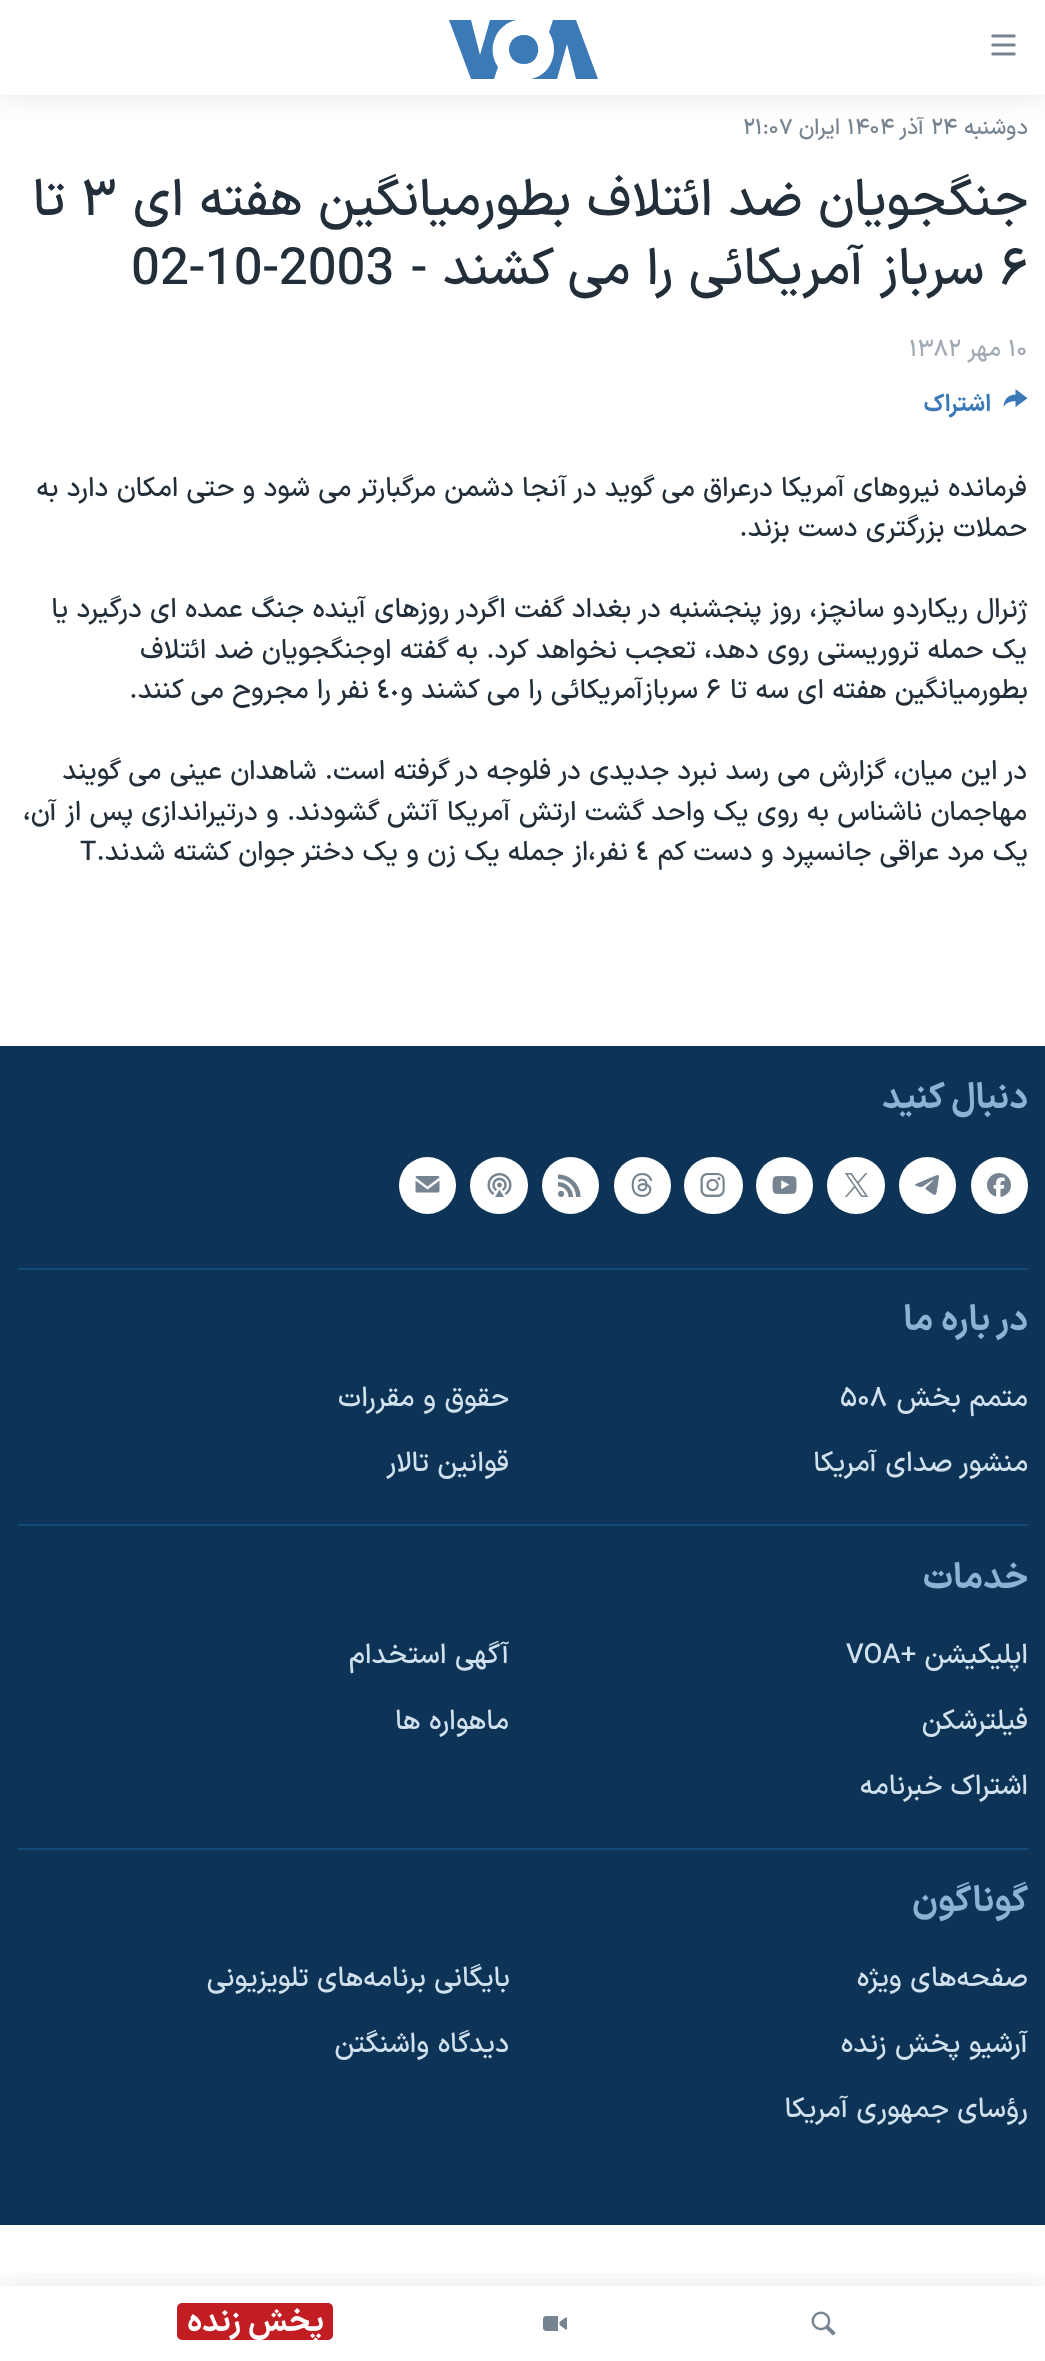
<svg xmlns="http://www.w3.org/2000/svg" width="1045" height="2361" viewBox="0 0 1045 2361">
  <defs>
    <filter id="blur1" x="-50%" y="-200%" width="200%" height="500%"><feGaussianBlur stdDeviation="15"/></filter>
    <clipPath id="clip1"><rect x="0" y="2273" width="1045" height="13"/></clipPath>
  </defs>
  <rect width="100%" height="100%" fill="#ffffff"/>
  <text x="1028" y="134" font-family="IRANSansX" font-size="22" font-weight="500" direction="rtl" fill="#768492">دوشنبه</text>
  <text x="931" y="134" font-family="IRANSansX" font-size="22" font-weight="500" fill="#768492">۲۴</text>
  <text x="924" y="134" font-family="IRANSansX" font-size="22" font-weight="500" direction="rtl" fill="#768492">آذر</text>
  <text x="847" y="134" font-family="IRANSansX" font-size="22" font-weight="500" fill="#768492">۱۴۰۴</text>
  <text x="840" y="134" font-family="IRANSansX" font-size="22" font-weight="500" direction="rtl" fill="#768492">ایران</text>
  <text x="743" y="134" font-family="IRANSansX" font-size="22" font-weight="500" fill="#768492">۲۱:۰۷</text>
  <text x="1028" y="215" font-family="IRANSansX" font-size="51.25" font-weight="500" direction="rtl" fill="#222f3a">جنگجويان ضد ائتلاف بطورميانگين هفته ای</text>
  <text x="81" y="215" font-family="IRANSansX" font-size="51.25" font-weight="500" fill="#222f3a">٣</text>
  <text x="65" y="215" font-family="IRANSansX" font-size="51.25" font-weight="500" direction="rtl" fill="#222f3a">تا</text>
  <text x="1000" y="284" font-family="IRANSansX" font-size="51.25" font-weight="500" fill="#222f3a">۶</text>
  <text x="984" y="284" font-family="IRANSansX" font-size="51.25" font-weight="500" direction="rtl" fill="#222f3a">سرباز آمريکائی را می کشند -</text>
  <text x="131" y="284" font-family="IRANSansX" font-size="51.25" font-weight="500" fill="#222f3a">02-10-2003</text>
  <text x="1008" y="356" font-family="IRANSansX" font-size="23.5" font-weight="500" fill="#a1aab4">۱۰</text>
  <text x="1001" y="356" font-family="IRANSansX" font-size="23.5" font-weight="500" direction="rtl" fill="#a1aab4">مهر</text>
  <text x="909" y="356" font-family="IRANSansX" font-size="23.5" font-weight="500" fill="#a1aab4">۱۳۸۲</text>
  <image x="1003" y="389" width="25" height="18" href="img1.png"/>
  <text x="991" y="411" font-family="IRANSansX" font-size="23.5" font-weight="bold" direction="rtl" fill="#3a79b7">اشتراک</text>
  <text x="1027" y="496" font-family="IRANSansX" font-size="27" font-weight="500" direction="rtl" fill="#222f3a">فرمانده نيروهای آمريکا درعراق می گويد در آنجا دشمن مرگبارتر می شود و حتی امکان دارد به</text>
  <text x="1027" y="536" font-family="IRANSansX" font-size="27" font-weight="500" direction="rtl" fill="#222f3a">حملات بزرگتری دست بزند.</text>
  <text x="1028" y="617" font-family="IRANSansX" font-size="27" font-weight="500" direction="rtl" fill="#222f3a">ژنرال ريکاردو سانچز، روز پنجشنبه در بغداد گفت اگردر روزهای آينده جنگ عمده ای درگيرد يا</text>
  <text x="1027" y="658" font-family="IRANSansX" font-size="27" font-weight="500" direction="rtl" fill="#222f3a">يک حمله تروريستی روی دهد، تعجب نخواهد کرد. به گفته اوجنگجويان ضد ائتلاف</text>
  <text x="1028" y="698" font-family="IRANSansX" font-size="27" font-weight="500" direction="rtl" fill="#222f3a">بطورميانگين هفته ای سه تا</text>
  <text x="706" y="698" font-family="IRANSansX" font-size="27" font-weight="500" fill="#222f3a">۶</text>
  <text x="698" y="698" font-family="IRANSansX" font-size="27" font-weight="500" direction="rtl" fill="#222f3a">سربازآمريکائی را می کشند و</text>
  <text x="377" y="698" font-family="IRANSansX" font-size="27" font-weight="500" fill="#222f3a">٤٠</text>
  <text x="369" y="698" font-family="IRANSansX" font-size="27" font-weight="500" direction="rtl" fill="#222f3a">نفر را مجروح می کنند.</text>
  <text x="1027" y="779" font-family="IRANSansX" font-size="27" font-weight="500" direction="rtl" fill="#222f3a">در اين ميان، گزارش می رسد نبرد جديدی در فلوجه در گرفته است. شاهدان عينی می گويند</text>
  <text x="1027" y="820" font-family="IRANSansX" font-size="27" font-weight="500" direction="rtl" fill="#222f3a">مهاجمان ناشناس به روی يک واحد گشت ارتش آمريکا آتش گشودند. و درتيراندازی پس از آن،</text>
  <text x="1028" y="860" font-family="IRANSansX" font-size="27" font-weight="500" direction="rtl" fill="#222f3a">يک مرد عراقی جانسپرد و دست کم</text>
  <text x="636" y="860" font-family="IRANSansX" font-size="27" font-weight="500" fill="#222f3a">٤</text>
  <text x="628" y="860" font-family="IRANSansX" font-size="27" font-weight="500" direction="rtl" fill="#222f3a">نفر،از جمله يک زن و يک دختر جوان کشته شدند.</text>
  <text x="80" y="860" font-family="IRANSansX" font-size="27" font-weight="500" fill="#222f3a">T</text>
  <rect x="0" y="1046" width="1045" height="1179" fill="#0d3456"/>
  <text x="1028" y="1108" font-family="IRANSansX" font-size="35.5" font-weight="bold" direction="rtl" fill="#8db3d4">دنبال کنید</text>
  <circle cx="999.5" cy="1185.5" r="28.5" fill="#ffffff"/>
  <image x="987" y="1173" width="24" height="24" href="img2.png"/>
  <circle cx="927.5" cy="1185.5" r="28.5" fill="#ffffff"/>
  <image x="915" y="1175" width="24" height="20" href="img3.png"/>
  <rect x="827" y="1157" width="58" height="57" rx="28.5" fill="#ffffff"/>
  <image x="844" y="1173" width="25" height="24" href="img4.png"/>
  <circle cx="784.5" cy="1185.5" r="28.5" fill="#ffffff"/>
  <image x="772" y="1176" width="25" height="18" href="img5.png"/>
  <rect x="684" y="1157" width="59" height="57" rx="28.5" fill="#ffffff"/>
  <image x="700" y="1173" width="25" height="24" href="img6.png"/>
  <circle cx="642.5" cy="1185.5" r="28.5" fill="#ffffff"/>
  <image x="631" y="1173" width="22" height="24" href="img7.png"/>
  <circle cx="570.5" cy="1185.5" r="28.5" fill="#ffffff"/>
  <image x="558" y="1174" width="23" height="23" href="img8.png"/>
  <rect x="470" y="1157" width="58" height="57" rx="28.5" fill="#ffffff"/>
  <image x="487" y="1173" width="25" height="24" href="img9.png"/>
  <circle cx="427.5" cy="1185.5" r="28.5" fill="#ffffff"/>
  <image x="415" y="1176" width="25" height="17" href="img10.png"/>
  <rect x="18" y="1268" width="1010" height="2" fill="#134976"/>
  <text x="1028" y="1330" font-family="IRANSansX" font-size="35.5" font-weight="bold" direction="rtl" fill="#8db3d4">در باره ما</text>
  <text x="1028" y="1406" font-family="IRANSansX" font-size="27.6" font-weight="500" direction="rtl" fill="#d1e1ee">متمم بخش</text>
  <text x="840" y="1406" font-family="IRANSansX" font-size="27.6" font-weight="500" fill="#d1e1ee">۵۰۸</text>
  <text x="509" y="1406" font-family="IRANSansX" font-size="27.6" font-weight="500" direction="rtl" fill="#d1e1ee">حقوق و مقررات</text>
  <text x="1028" y="1471" font-family="IRANSansX" font-size="27.6" font-weight="500" direction="rtl" fill="#d1e1ee">منشور صدای آمریکا</text>
  <text x="509" y="1471" font-family="IRANSansX" font-size="27.6" font-weight="500" direction="rtl" fill="#d1e1ee">قوانین تالار</text>
  <rect x="18" y="1524" width="1010" height="2" fill="#134976"/>
  <text x="1028" y="1588" font-family="IRANSansX" font-size="35.5" font-weight="bold" direction="rtl" fill="#8db3d4">خدمات</text>
  <text x="1028" y="1663" font-family="IRANSansX" font-size="27.6" font-weight="500" direction="rtl" fill="#d1e1ee">اپلیکیشن +</text>
  <text x="846" y="1663" font-family="IRANSansX" font-size="27.6" font-weight="500" fill="#d1e1ee">VOA</text>
  <text x="509" y="1663" font-family="IRANSansX" font-size="27.6" font-weight="500" direction="rtl" fill="#d1e1ee">آگهی استخدام</text>
  <text x="1028" y="1729" font-family="IRANSansX" font-size="27.6" font-weight="500" direction="rtl" fill="#d1e1ee">فیلترشکن</text>
  <text x="509" y="1729" font-family="IRANSansX" font-size="27.6" font-weight="500" direction="rtl" fill="#d1e1ee">ماهواره ها</text>
  <text x="1028" y="1794" font-family="IRANSansX" font-size="27.6" font-weight="500" direction="rtl" fill="#d1e1ee">اشتراک خبرنامه</text>
  <rect x="18" y="1848" width="1010" height="2" fill="#134976"/>
  <text x="1028" y="1911" font-family="IRANSansX" font-size="35.5" font-weight="bold" direction="rtl" fill="#8db3d4">گوناگون</text>
  <text x="1028" y="1986" font-family="IRANSansX" font-size="27.6" font-weight="500" direction="rtl" fill="#d1e1ee">صفحه‌های ویژه</text>
  <text x="510" y="1986" font-family="IRANSansX" font-size="27.6" font-weight="500" direction="rtl" fill="#d1e1ee">بایگانی برنامه‌های تلویزیونی</text>
  <text x="1028" y="2052" font-family="IRANSansX" font-size="27.6" font-weight="500" direction="rtl" fill="#d1e1ee">آرشیو پخش زنده</text>
  <text x="509" y="2052" font-family="IRANSansX" font-size="27.6" font-weight="500" direction="rtl" fill="#d1e1ee">دیدگاه‌ واشنگتن</text>
  <text x="1028" y="2117" font-family="IRANSansX" font-size="27.6" font-weight="500" direction="rtl" fill="#d1e1ee">رؤسای جمهوری آمریکا</text>
  <rect x="0" y="0" width="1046" height="95" fill="#000000" fill-opacity="0.1" filter="url(#blur1)"/>
  <rect x="0" y="0" width="1045" height="95" fill="#ffffff"/>
  <image x="991" y="34" width="25" height="22" href="img11.png"/>
  <path d="M498 67L494 79H471L449 20H471L480 55L490 20H516C495 25 486 50 498 67ZM524 35C504 35 504 64 524 64C543 64 543 35 524 35ZM554 49C554 64 545 76 531 79H557L567 44L576 79H598L576 20H553L549 32C552 37 554 43 554 49Z" fill="#3b79b7"/>
  <g clip-path="url(#clip1)">
    <rect x="0" y="2286" width="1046" height="75" fill="#000000" fill-opacity="0.1" filter="url(#blur1)"/>
  </g>
  <image x="811" y="2311" width="25" height="25" href="img12.png"/>
  <image x="543" y="2316" width="24" height="15" href="img13.png"/>
  <rect x="177" y="2303" width="156" height="37" rx="5" fill="#c11d22"/>
  <text x="324" y="2331" font-family="IRANSansX" font-size="31.5" font-weight="bold" direction="rtl" fill="#ffffff">پخش زنده</text>
</svg>
